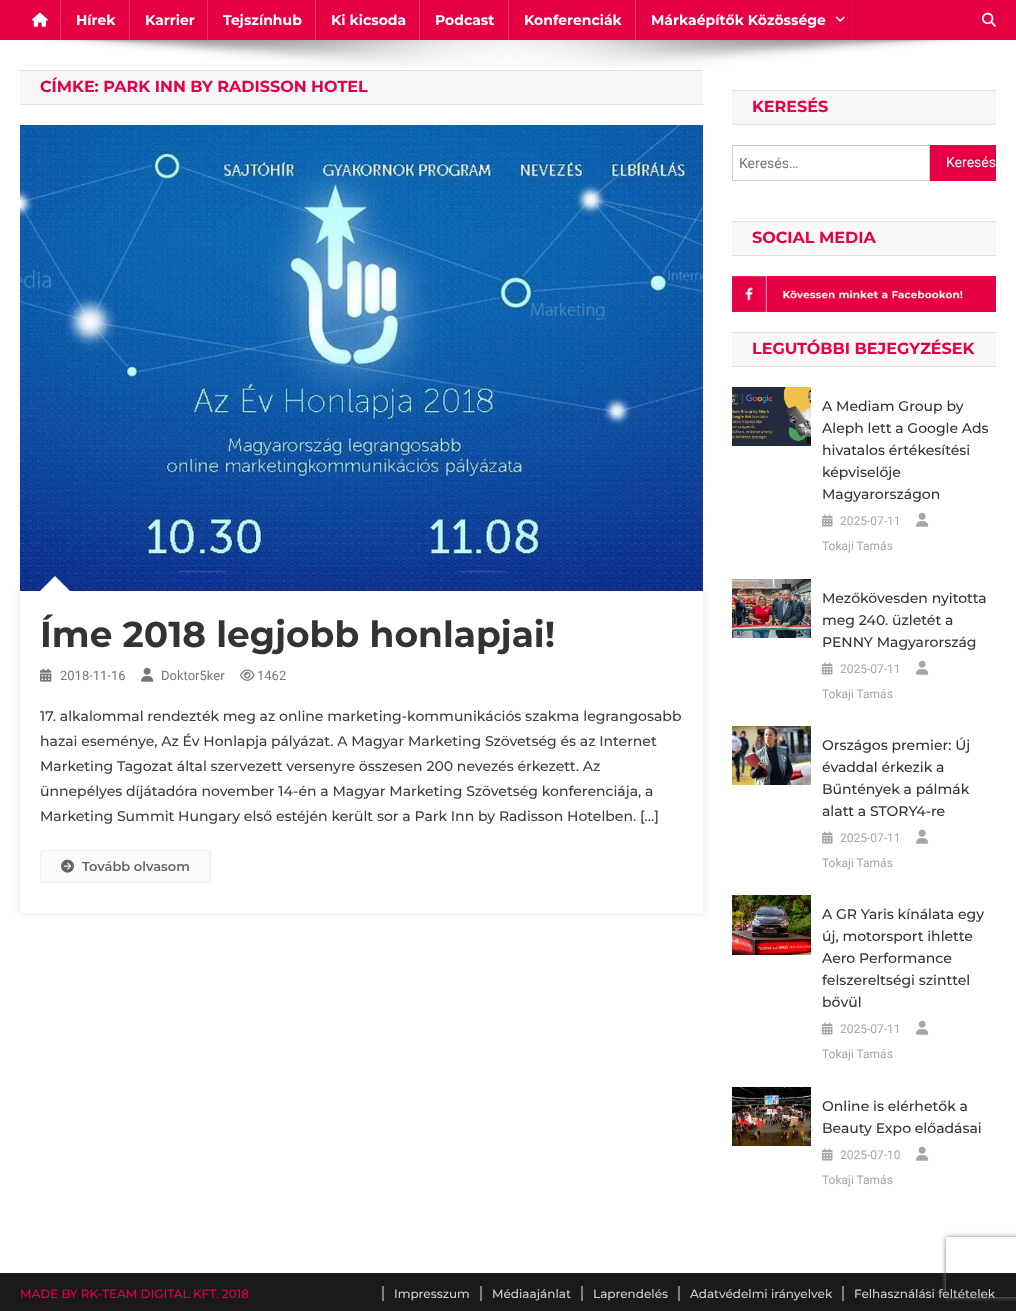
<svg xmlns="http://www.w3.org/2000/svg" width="1016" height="1311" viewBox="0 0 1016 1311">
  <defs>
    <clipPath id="clip1"><path d="M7 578H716V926H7ZM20 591H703V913H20Z" clip-rule="evenodd"/></clipPath>
    <filter id="blur1" x="-50%" y="-200%" width="200%" height="500%"><feGaussianBlur stdDeviation="4"/></filter>
    <clipPath id="clip2"><path d="M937 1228H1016V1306H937ZM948 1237H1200C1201 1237 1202 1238 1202 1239V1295C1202 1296 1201 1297 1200 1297H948C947 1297 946 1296 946 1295V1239C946 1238 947 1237 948 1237Z" clip-rule="evenodd"/></clipPath>
    <filter id="blur2" x="-50%" y="-200%" width="200%" height="500%"><feGaussianBlur stdDeviation="2.5"/></filter>
  </defs>
  <rect width="100%" height="100%" fill="#ffffff"/>
  <rect x="0" y="0" width="1016" height="40" fill="#e50046"/>
  <image x="32" y="12" width="16" height="15" href="img1.png"/>
  <rect x="131" y="0" width="1" height="40" fill="#d30040"/>
  <rect x="60" y="0" width="1" height="40" fill="#ea336b"/>
  <text x="76" y="25" font-family="Montserrat" font-size="14" font-weight="bold" fill="#ffffff">Hírek</text>
  <rect x="209" y="0" width="1" height="40" fill="#d30040"/>
  <rect x="129" y="0" width="1" height="40" fill="#ea336b"/>
  <text x="145" y="25" font-family="Montserrat" font-size="14" font-weight="bold" fill="#ffffff">Karrier</text>
  <rect x="317" y="0" width="1" height="40" fill="#d30040"/>
  <rect x="207" y="0" width="1" height="40" fill="#ea336b"/>
  <text x="223" y="25" font-family="Montserrat" font-size="14" font-weight="bold" fill="#ffffff">Tejszínhub</text>
  <rect x="421" y="0" width="1" height="40" fill="#d30040"/>
  <rect x="315" y="0" width="1" height="40" fill="#ea336b"/>
  <text x="331" y="25" font-family="Montserrat" font-size="14" font-weight="bold" fill="#ffffff">Ki kicsoda</text>
  <rect x="510" y="0" width="1" height="40" fill="#d30040"/>
  <rect x="419" y="0" width="1" height="40" fill="#ea336b"/>
  <text x="435" y="25" font-family="Montserrat" font-size="14" font-weight="bold" fill="#ffffff">Podcast</text>
  <rect x="637" y="0" width="1" height="40" fill="#d30040"/>
  <rect x="508" y="0" width="1" height="40" fill="#ea336b"/>
  <text x="524" y="25" font-family="Montserrat" font-size="14" font-weight="bold" fill="#ffffff">Konferenciák</text>
  <rect x="855" y="0" width="1" height="40" fill="#d30040"/>
  <rect x="635" y="0" width="1" height="40" fill="#ea336b"/>
  <text x="651" y="25" font-family="Montserrat" font-size="14" font-weight="bold" fill="#ffffff">Márkaépítők Közössége</text>
  <image x="835" y="16" width="10" height="6" href="img2.png"/>
  <image x="982" y="12" width="14" height="15" href="img3.png"/>
  <image x="45" y="40" width="925" height="28" href="img4.png"/>
  <rect x="20" y="71" width="683" height="33" fill="#f7f7f7"/>
  <rect x="20" y="70" width="683" height="1" fill="#e1e1e1"/>
  <rect x="20" y="104" width="683" height="1" fill="#e1e1e1"/>
  <text x="40" y="92" font-family="Montserrat" font-size="16" font-weight="bold" fill="#e50046">CÍMKE: PARK INN BY RADISSON HOTEL</text>
  <image x="20" y="125" width="683" height="466" href="img5.png"/>
  <g clip-path="url(#clip1)">
    <rect x="20" y="591" width="683" height="322" fill="#000000" fill-opacity="0.1" filter="url(#blur1)"/>
  </g>
  <path d="M70 591H40L55 576Z" fill="#ffffff"/>
  <text x="40" y="647" font-family="Montserrat" font-size="36" font-weight="bold" fill="#333333">Íme 2018 legjobb honlapjai!</text>
  <image x="40" y="668" width="12" height="14" href="img6.png"/>
  <text x="60" y="680" font-family="Roboto" font-size="13" fill="#767676">2018-11-16</text>
  <image x="141" y="667" width="13" height="15" href="img7.png"/>
  <text x="161" y="680" font-family="Roboto" font-size="13" fill="#767676">Doktor5ker</text>
  <image x="240" y="669" width="15" height="12" href="img8.png"/>
  <text x="257" y="680" font-family="Roboto" font-size="13" fill="#767676">1462</text>
  <text x="40" y="721" font-family="Montserrat" font-size="14" font-weight="500" fill="#3d3d3d">17. alkalommal rendezték meg az online marketing-kommunikációs szakma legrangosabb</text>
  <text x="40" y="746" font-family="Montserrat" font-size="14" font-weight="500" fill="#3d3d3d">hazai eseménye, Az Év Honlapja pályázat. A Magyar Marketing Szövetség és az Internet</text>
  <text x="40" y="771" font-family="Montserrat" font-size="14" font-weight="500" fill="#3d3d3d">Marketing Tagozat által szervezett versenyre összesen 200 nevezés érkezett. Az</text>
  <text x="40" y="796" font-family="Montserrat" font-size="14" font-weight="500" fill="#3d3d3d">ünnepélyes díjátadóra november 14-én a Magyar Marketing Szövetség konferenciája, a</text>
  <text x="40" y="821" font-family="Montserrat" font-size="14" font-weight="500" fill="#3d3d3d">Marketing Summit Hungary első estéjén került sor a Park Inn by Radisson Hotelben. […]</text>
  <rect x="40.5" y="850.5" width="170" height="32" rx="2.5" fill="#fafafa" stroke="#eeeeee"/>
  <image x="61" y="859" width="13" height="14" href="img9.png"/>
  <text x="82" y="871" font-family="Montserrat" font-size="13" font-weight="600" fill="#666666">Tovább olvasom</text>
  <rect x="732" y="91" width="264" height="33" fill="#f7f7f7"/>
  <rect x="732" y="90" width="264" height="1" fill="#e1e1e1"/>
  <rect x="732" y="124" width="264" height="1" fill="#e1e1e1"/>
  <text x="752" y="112" font-family="Montserrat" font-size="16" font-weight="bold" fill="#e50046">KERESÉS</text>
  <rect x="732.5" y="145.5" width="197" height="35" fill="none" stroke="#cccccc"/>
  <text x="739" y="168" font-family="Roboto" font-size="14" fill="#767676">Keresés…</text>
  <rect x="930" y="145" width="66" height="36" fill="#e50046"/>
  <text x="946" y="167" font-family="Roboto" font-size="14" fill="#ffffff">Keresés</text>
  <rect x="732" y="222" width="264" height="33" fill="#f7f7f7"/>
  <rect x="732" y="221" width="264" height="1" fill="#e1e1e1"/>
  <rect x="732" y="255" width="264" height="1" fill="#e1e1e1"/>
  <text x="752" y="243" font-family="Montserrat" font-size="16" font-weight="bold" fill="#e50046">SOCIAL MEDIA</text>
  <image x="732" y="276" width="264" height="36" href="img10.png"/>
  <rect x="732" y="333" width="264" height="33" fill="#f7f7f7"/>
  <rect x="732" y="332" width="264" height="1" fill="#e1e1e1"/>
  <rect x="732" y="366" width="264" height="1" fill="#e1e1e1"/>
  <text x="752" y="354" font-family="Montserrat" font-size="16" font-weight="bold" fill="#e50046">LEGUTÓBBI BEJEGYZÉSEK</text>
  <image x="732" y="387" width="79" height="59" href="img11.png"/>
  <text x="822" y="411" font-family="Montserrat" font-size="14" font-weight="500" fill="#333333">A Mediam Group by</text>
  <text x="822" y="433" font-family="Montserrat" font-size="14" font-weight="500" fill="#333333">Aleph lett a Google Ads</text>
  <text x="822" y="455" font-family="Montserrat" font-size="14" font-weight="500" fill="#333333">hivatalos értékesítési</text>
  <text x="822" y="477" font-family="Montserrat" font-size="14" font-weight="500" fill="#333333">képviselője</text>
  <text x="822" y="499" font-family="Montserrat" font-size="14" font-weight="500" fill="#333333">Magyarországon</text>
  <image x="822" y="514" width="11" height="13" href="img12.png"/>
  <text x="840" y="525" font-family="Roboto" font-size="12" fill="#a6a6a6">2025-07-11</text>
  <image x="916" y="512" width="13" height="15" href="img13.png"/>
  <text x="822" y="550" font-family="Roboto" font-size="12" fill="#a6a6a6">Tokaji Tamás</text>
  <image x="732" y="579" width="79" height="59" href="img14.png"/>
  <text x="822" y="603" font-family="Montserrat" font-size="14" font-weight="500" fill="#333333">Mezőkövesden nyitotta</text>
  <text x="822" y="625" font-family="Montserrat" font-size="14" font-weight="500" fill="#333333">meg 240. üzletét a</text>
  <text x="822" y="647" font-family="Montserrat" font-size="14" font-weight="500" fill="#333333">PENNY Magyarország</text>
  <image x="822" y="662" width="11" height="13" href="img12.png"/>
  <text x="840" y="673" font-family="Roboto" font-size="12" fill="#a6a6a6">2025-07-11</text>
  <image x="916" y="660" width="13" height="15" href="img13.png"/>
  <text x="822" y="698" font-family="Roboto" font-size="12" fill="#a6a6a6">Tokaji Tamás</text>
  <image x="732" y="726" width="79" height="59" href="img15.png"/>
  <text x="822" y="750" font-family="Montserrat" font-size="14" font-weight="500" fill="#333333">Országos premier: Új</text>
  <text x="822" y="772" font-family="Montserrat" font-size="14" font-weight="500" fill="#333333">évaddal érkezik a</text>
  <text x="822" y="794" font-family="Montserrat" font-size="14" font-weight="500" fill="#333333">Bűntények a pálmák</text>
  <text x="822" y="816" font-family="Montserrat" font-size="14" font-weight="500" fill="#333333">alatt a STORY4-re</text>
  <image x="822" y="831" width="11" height="13" href="img12.png"/>
  <text x="840" y="842" font-family="Roboto" font-size="12" fill="#a6a6a6">2025-07-11</text>
  <image x="916" y="829" width="13" height="15" href="img13.png"/>
  <text x="822" y="867" font-family="Roboto" font-size="12" fill="#a6a6a6">Tokaji Tamás</text>
  <image x="732" y="895" width="79" height="60" href="img16.png"/>
  <text x="822" y="919" font-family="Montserrat" font-size="14" font-weight="500" fill="#333333">A GR Yaris kínálata egy</text>
  <text x="822" y="941" font-family="Montserrat" font-size="14" font-weight="500" fill="#333333">új, motorsport ihlette</text>
  <text x="822" y="963" font-family="Montserrat" font-size="14" font-weight="500" fill="#333333">Aero Performance</text>
  <text x="822" y="985" font-family="Montserrat" font-size="14" font-weight="500" fill="#333333">felszereltségi szinttel</text>
  <text x="822" y="1007" font-family="Montserrat" font-size="14" font-weight="500" fill="#333333">bővül</text>
  <image x="822" y="1022" width="11" height="13" href="img12.png"/>
  <text x="840" y="1033" font-family="Roboto" font-size="12" fill="#a6a6a6">2025-07-11</text>
  <image x="916" y="1020" width="13" height="15" href="img13.png"/>
  <text x="822" y="1058" font-family="Roboto" font-size="12" fill="#a6a6a6">Tokaji Tamás</text>
  <image x="732" y="1087" width="79" height="59" href="img17.png"/>
  <text x="822" y="1111" font-family="Montserrat" font-size="14" font-weight="500" fill="#333333">Online is elérhetők a</text>
  <text x="822" y="1133" font-family="Montserrat" font-size="14" font-weight="500" fill="#333333">Beauty Expo előadásai</text>
  <image x="822" y="1148" width="11" height="13" href="img12.png"/>
  <text x="840" y="1159" font-family="Roboto" font-size="12" fill="#a6a6a6">2025-07-10</text>
  <image x="916" y="1146" width="13" height="15" href="img13.png"/>
  <text x="822" y="1184" font-family="Roboto" font-size="12" fill="#a6a6a6">Tokaji Tamás</text>
  <rect x="0" y="1273" width="1016" height="38" fill="#1a1a1a"/>
  <text x="20" y="1298" font-family="Montserrat" font-size="12" font-weight="500" fill="#e50046">MADE BY RK-TEAM DIGITAL KFT. 2018</text>
  <text x="394" y="1298" font-family="Montserrat" font-size="12" font-weight="500" fill="#cfcfcf">Impresszum</text>
  <rect x="382" y="1286" width="2" height="15" fill="#7f7f7f"/>
  <text x="492" y="1298" font-family="Montserrat" font-size="12" font-weight="500" fill="#cfcfcf">Médiaajánlat</text>
  <rect x="480" y="1286" width="2" height="15" fill="#7f7f7f"/>
  <text x="593" y="1298" font-family="Montserrat" font-size="12" font-weight="500" fill="#cfcfcf">Laprendelés</text>
  <rect x="581" y="1286" width="2" height="15" fill="#7f7f7f"/>
  <text x="690" y="1298" font-family="Montserrat" font-size="12" font-weight="500" fill="#cfcfcf">Adatvédelmi irányelvek</text>
  <rect x="678" y="1286" width="2" height="15" fill="#7f7f7f"/>
  <text x="854" y="1298" font-family="Montserrat" font-size="12" font-weight="500" fill="#cfcfcf">Felhasználási feltételek</text>
  <rect x="842" y="1286" width="2" height="15" fill="#7f7f7f"/>
  <g clip-path="url(#clip2)">
    <rect x="946" y="1237" width="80" height="60" rx="2" fill="#808080" filter="url(#blur2)"/>
  </g>
</svg>
